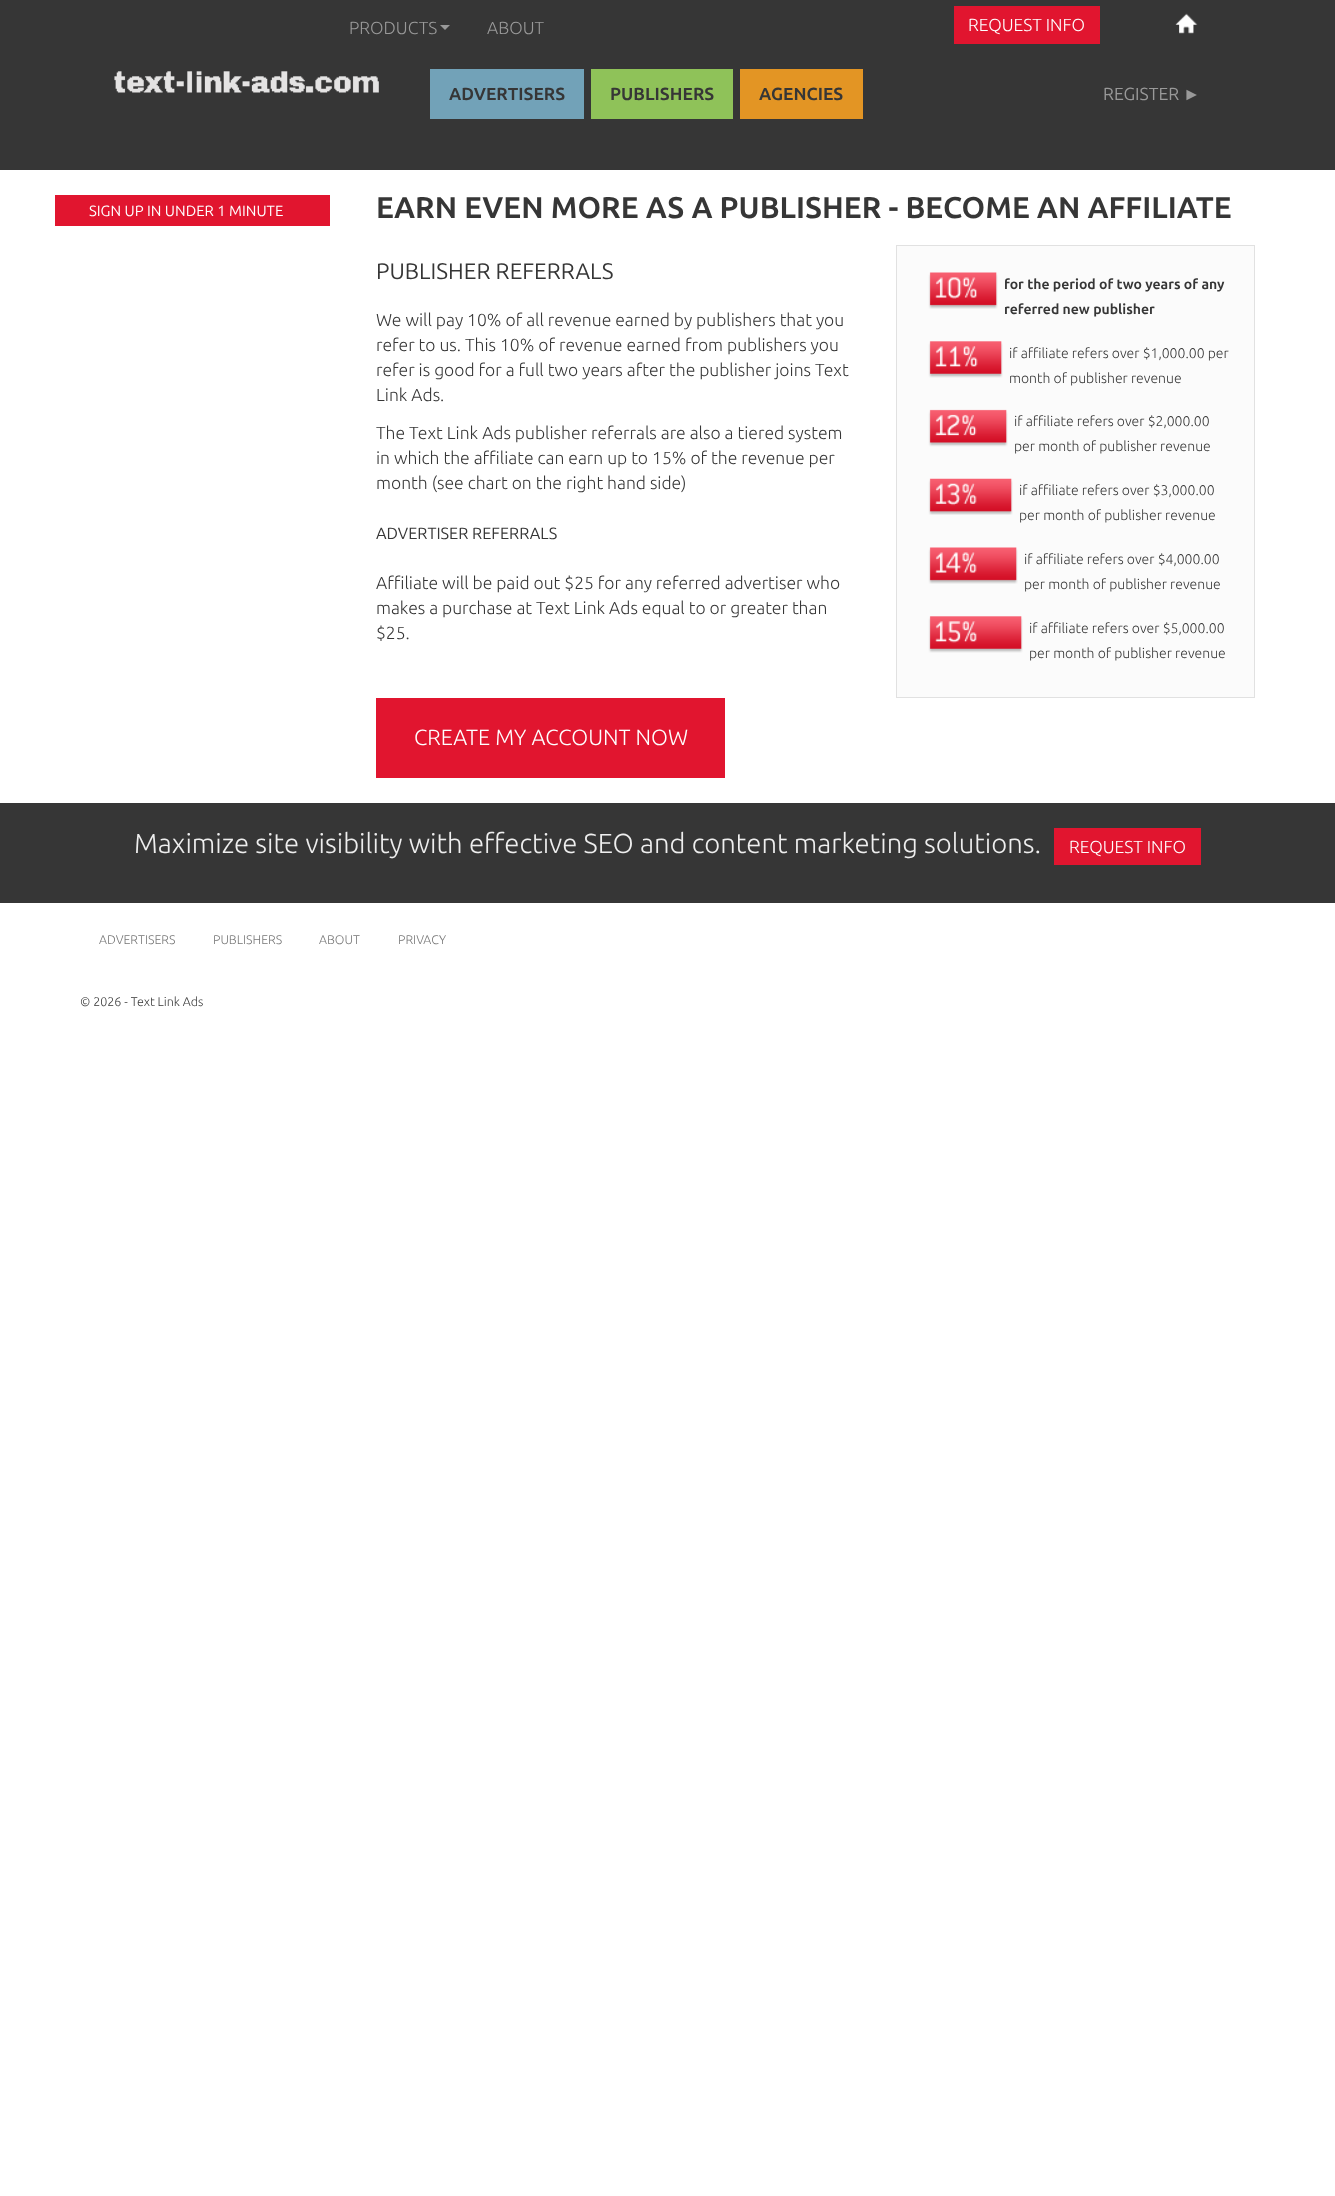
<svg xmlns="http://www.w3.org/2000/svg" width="1335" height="2196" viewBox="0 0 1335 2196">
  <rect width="100%" height="100%" fill="#ffffff"/>
  <rect x="0" y="0" width="1335" height="170" fill="#363636"/>
  <text x="349" y="34" font-family="Ubuntu" font-size="17.5" font-weight="300" fill="#999999">PRODUCTS</text>
  <path d="M440 25H450L445 30Z" fill="#999999"/>
  <text x="487" y="34" font-family="Ubuntu" font-size="17.5" font-weight="300" fill="#999999">ABOUT</text>
  <rect x="954" y="6" width="146" height="38" fill="#e1152f"/>
  <text x="968" y="31" font-family="Ubuntu" font-size="17.5" font-weight="300" fill="#ffffff">REQUEST INFO</text>
  <image x="1175" y="13" width="23" height="21" href="img1.png"/>
  <image x="114" y="71" width="265" height="22" href="img2.png"/>
  <rect x="430" y="69" width="154" height="50" fill="#72a2b8"/>
  <text x="449" y="100" font-family="Ubuntu" font-size="17.5" font-weight="bold" fill="#363636">ADVERTISERS</text>
  <rect x="591" y="69" width="142" height="50" fill="#8fc259"/>
  <text x="610" y="100" font-family="Ubuntu" font-size="17.5" font-weight="bold" fill="#363636">PUBLISHERS</text>
  <rect x="740" y="69" width="123" height="50" fill="#e39524"/>
  <text x="759" y="100" font-family="Ubuntu" font-size="17.5" font-weight="bold" fill="#363636">AGENCIES</text>
  <text x="1103" y="100" font-family="Ubuntu" font-size="17.5" fill="#999999">REGISTER</text>
  <text x="1183" y="100" font-family="Liberation Sans" font-size="17.5" fill="#999999">►</text>
  <rect x="55" y="195" width="275" height="31" fill="#e1152f"/>
  <text x="89" y="216" font-family="Ubuntu" font-size="14.9" fill="#ffffff">SIGN UP IN UNDER 1 MINUTE</text>
  <text x="376" y="218" font-family="Ubuntu" font-size="30" font-weight="bold" fill="#363636">EARN EVEN MORE AS A PUBLISHER - BECOME AN AFFILIATE</text>
  <text x="376" y="279" font-family="Ubuntu" font-size="22.5" fill="#363636">PUBLISHER REFERRALS</text>
  <text x="376" y="326" font-family="Ubuntu" font-size="17.5" font-weight="300" fill="#363636">We will pay 10% of all revenue earned by publishers that you</text>
  <text x="376" y="351" font-family="Ubuntu" font-size="17.5" font-weight="300" fill="#363636">refer to us. This 10% of revenue earned from publishers you</text>
  <text x="376" y="376" font-family="Ubuntu" font-size="17.5" font-weight="300" fill="#363636">refer is good for a full two years after the publisher joins Text</text>
  <text x="376" y="401" font-family="Ubuntu" font-size="17.5" font-weight="300" fill="#363636">Link Ads.</text>
  <rect x="896.5" y="245.5" width="358" height="452" fill="#fbfbfb" stroke="#e1e1e1"/>
  <image x="928" y="272" width="70" height="37" href="img3.png"/>
  <text x="1004" y="289" font-family="Ubuntu" font-size="14" font-weight="bold" fill="#363636">for the period of two years of any</text>
  <text x="1004" y="314" font-family="Ubuntu" font-size="14" font-weight="bold" fill="#363636">referred new publisher</text>
  <image x="928" y="341" width="75" height="37" href="img4.png"/>
  <text x="1009" y="358" font-family="Ubuntu" font-size="14" font-weight="300" fill="#363636">if affiliate refers over $1,000.00 per</text>
  <text x="1009" y="383" font-family="Ubuntu" font-size="14" font-weight="300" fill="#363636">month of publisher revenue</text>
  <image x="928" y="409" width="80" height="38" href="img5.png"/>
  <text x="1014" y="426" font-family="Ubuntu" font-size="14" font-weight="300" fill="#363636">if affiliate refers over $2,000.00</text>
  <text x="1014" y="451" font-family="Ubuntu" font-size="14" font-weight="300" fill="#363636">per month of publisher revenue</text>
  <image x="928" y="478" width="85" height="37" href="img6.png"/>
  <text x="1019" y="495" font-family="Ubuntu" font-size="14" font-weight="300" fill="#363636">if affiliate refers over $3,000.00</text>
  <text x="1019" y="520" font-family="Ubuntu" font-size="14" font-weight="300" fill="#363636">per month of publisher revenue</text>
  <image x="928" y="547" width="90" height="37" href="img7.png"/>
  <text x="1024" y="564" font-family="Ubuntu" font-size="14" font-weight="300" fill="#363636">if affiliate refers over $4,000.00</text>
  <text x="1024" y="589" font-family="Ubuntu" font-size="14" font-weight="300" fill="#363636">per month of publisher revenue</text>
  <image x="928" y="616" width="95" height="37" href="img8.png"/>
  <text x="1029" y="633" font-family="Ubuntu" font-size="14" font-weight="300" fill="#363636">if affiliate refers over $5,000.00</text>
  <text x="1029" y="658" font-family="Ubuntu" font-size="14" font-weight="300" fill="#363636">per month of publisher revenue</text>
  <text x="376" y="439" font-family="Ubuntu" font-size="17.5" font-weight="300" fill="#363636">The Text Link Ads publisher referrals are also a tiered system</text>
  <text x="376" y="464" font-family="Ubuntu" font-size="17.5" font-weight="300" fill="#363636">in which the affiliate can earn up to 15% of the revenue per</text>
  <text x="376" y="489" font-family="Ubuntu" font-size="17.5" font-weight="300" fill="#363636">month (see chart on the right hand side)</text>
  <text x="376" y="539" font-family="Ubuntu" font-size="16.25" fill="#363636">ADVERTISER REFERRALS</text>
  <text x="376" y="589" font-family="Ubuntu" font-size="17.5" font-weight="300" fill="#363636">Affiliate will be paid out $25 for any referred advertiser who</text>
  <text x="376" y="614" font-family="Ubuntu" font-size="17.5" font-weight="300" fill="#363636">makes a purchase at Text Link Ads equal to or greater than</text>
  <text x="376" y="639" font-family="Ubuntu" font-size="17.5" font-weight="300" fill="#363636">$25.</text>
  <rect x="376" y="698" width="349" height="80" fill="#e1152f"/>
  <text x="414" y="745" font-family="Ubuntu" font-size="21.9" font-weight="300" fill="#ffffff">CREATE MY ACCOUNT NOW</text>
  <rect x="0" y="803" width="1335" height="100" fill="#363636"/>
  <text x="134" y="853" font-family="Ubuntu" font-size="27.5" font-weight="300" fill="#eeeeee">Maximize site visibility with effective SEO and content marketing solutions.</text>
  <rect x="1054" y="828" width="147" height="37" fill="#e1152f"/>
  <text x="1069" y="853" font-family="Ubuntu" font-size="17.5" font-weight="300" fill="#ffffff">REQUEST INFO</text>
  <text x="99" y="944" font-family="Ubuntu" font-size="12.5" font-weight="300" fill="#777777">ADVERTISERS</text>
  <text x="213" y="944" font-family="Ubuntu" font-size="12.5" font-weight="300" fill="#777777">PUBLISHERS</text>
  <text x="319" y="944" font-family="Ubuntu" font-size="12.5" font-weight="300" fill="#777777">ABOUT</text>
  <text x="398" y="944" font-family="Ubuntu" font-size="12.5" font-weight="300" fill="#777777">PRIVACY</text>
  <text x="80" y="1006" font-family="Ubuntu" font-size="12.5" font-weight="300" fill="#363636">© 2026 - Text Link Ads</text>
</svg>
